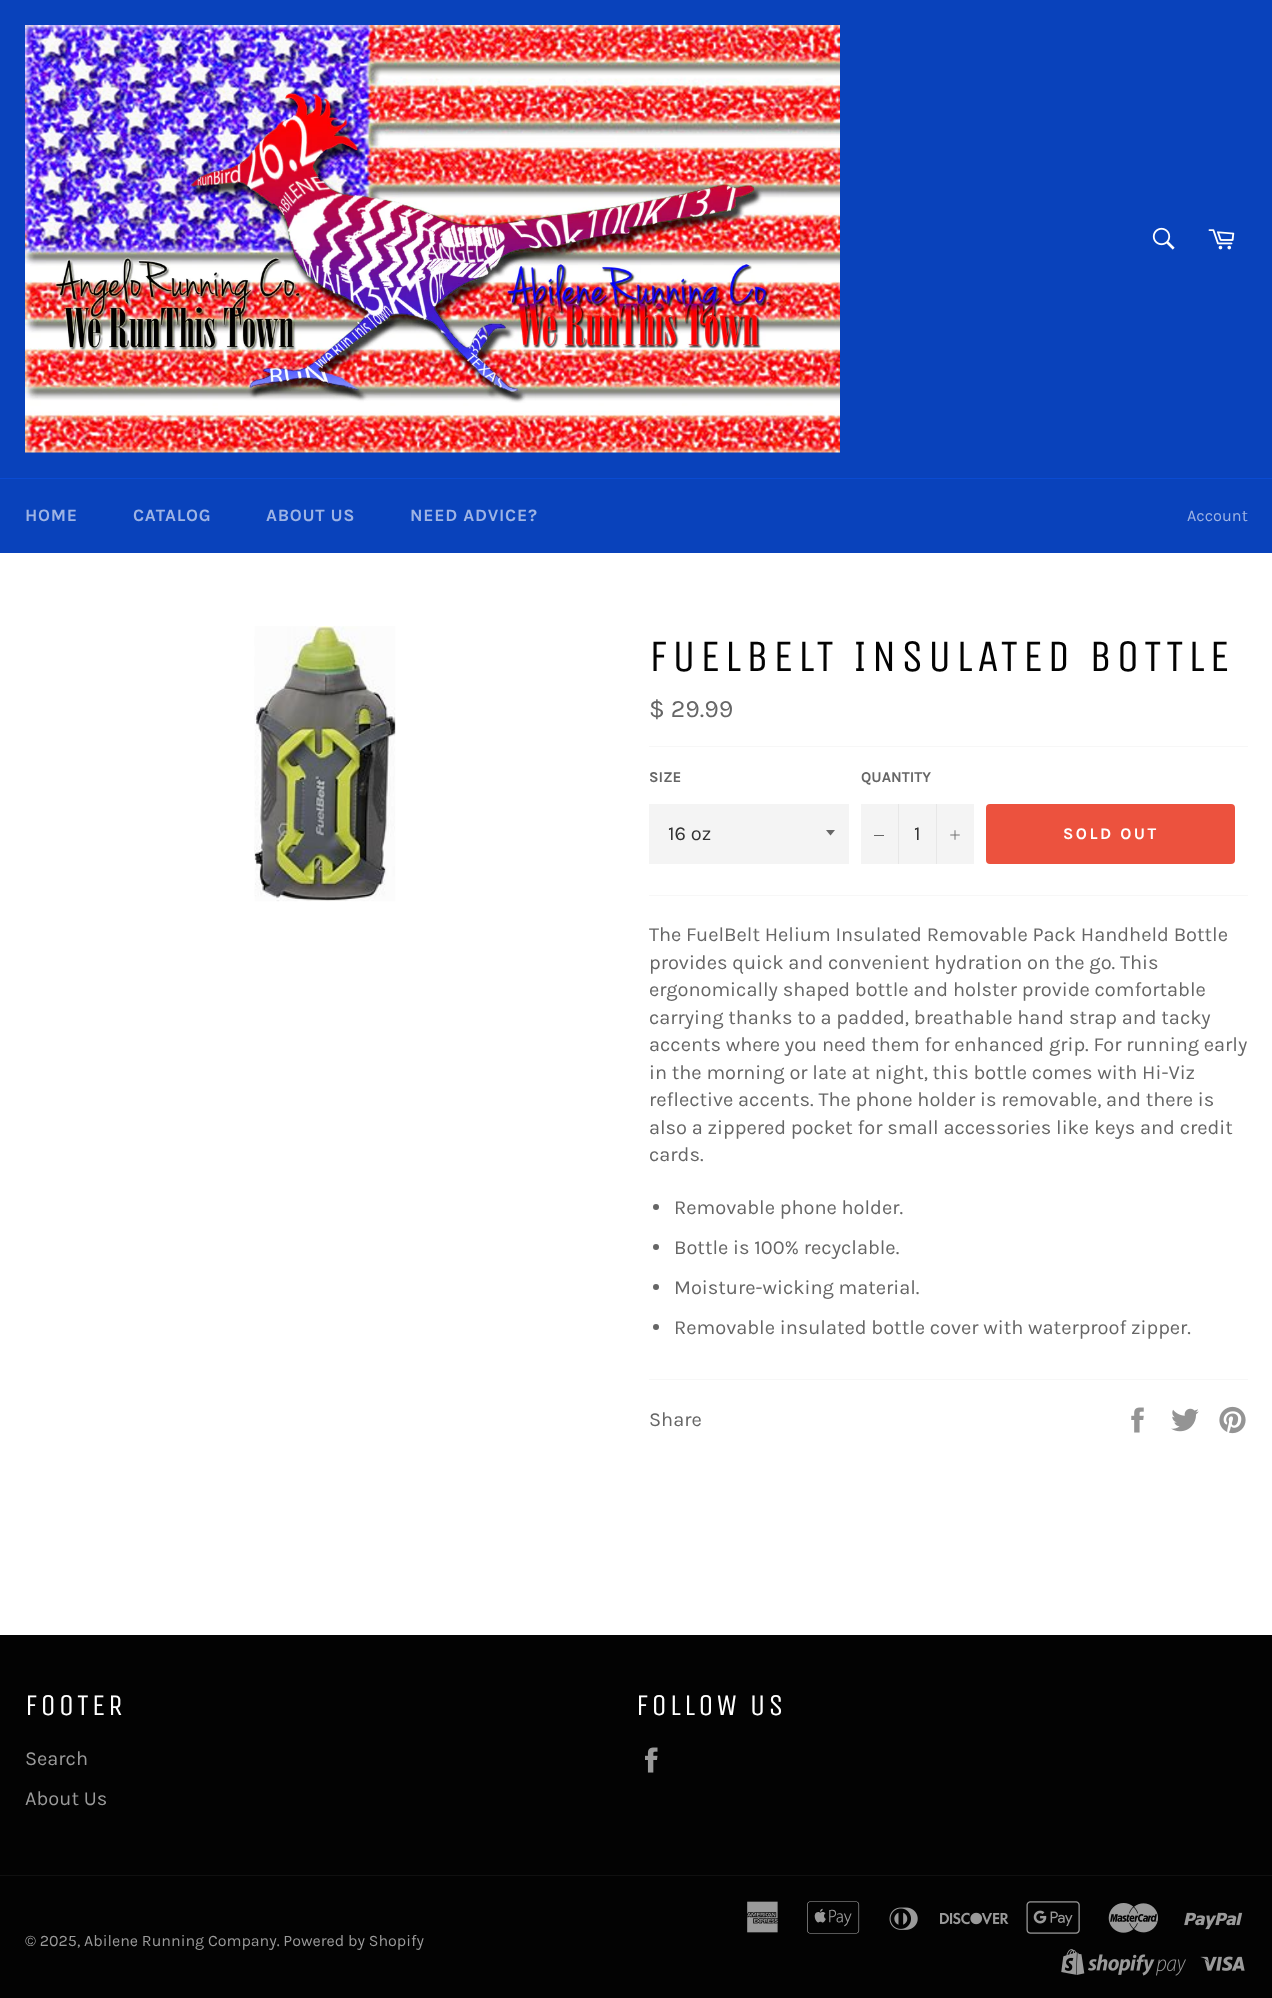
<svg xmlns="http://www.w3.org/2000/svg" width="1272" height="1998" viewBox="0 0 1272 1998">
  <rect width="100%" height="100%" fill="#0942bb"/>
  <image x="25" y="25" width="815" height="428" href="img1.png"/>
  <image x="1152" y="227" width="23" height="23" href="img2.png"/>
  <image x="1208" y="229" width="27" height="21" href="img3.png"/>
  <rect x="0" y="478" width="1272" height="1" fill="#0a4bd3"/>
  <text x="25" y="521" font-family="Karla" font-size="17.5" font-weight="bold" letter-spacing="0.75" fill="#9db3e4">HOME</text>
  <text x="133" y="521" font-family="Karla" font-size="17.5" font-weight="bold" letter-spacing="0.75" fill="#9db3e4">CATALOG</text>
  <text x="266" y="521" font-family="Karla" font-size="17.5" font-weight="bold" letter-spacing="0.75" fill="#9db3e4">ABOUT US</text>
  <text x="410" y="521" font-family="Karla" font-size="17.5" font-weight="bold" letter-spacing="0.75" fill="#9db3e4">NEED ADVICE?</text>
  <text x="1187" y="521" font-family="Karla" font-size="16.25" fill="#9db3e4">Account</text>
  <rect x="0" y="553" width="1272" height="1082" fill="#ffffff"/>
  <image x="254" y="626" width="142" height="276" href="img4.png"/>
  <text x="649" y="671" font-family="Unica One" font-size="45" letter-spacing="4.5" fill="#030303">FUELBELT INSULATED BOTTLE</text>
  <text x="649" y="717" font-family="Karla" font-size="25" fill="#666666">$ 29.99</text>
  <rect x="649" y="746" width="599" height="1" fill="#f7f7f7"/>
  <text x="649" y="782" font-family="Karla" font-size="15" font-weight="bold" fill="#666666">SIZE</text>
  <rect x="649" y="804" width="200" height="60" fill="#f4f4f4"/>
  <path d="M826 830L830.5 835.5L835 830Z" fill="#666666"/>
  <text x="668" y="840" font-family="Karla" font-size="20" fill="#333333">16 oz</text>
  <text x="861" y="782" font-family="Karla" font-size="15" font-weight="bold" fill="#666666">QUANTITY</text>
  <rect x="861" y="804" width="113" height="60" fill="#f4f4f4"/>
  <rect x="898" y="804" width="1" height="60" fill="#e7e7e7"/>
  <rect x="874" y="835" width="10" height="1" fill="#666666"/>
  <text x="914" y="840" font-family="Karla" font-size="20" fill="#333333">1</text>
  <rect x="936" y="804" width="1" height="60" fill="#e7e7e7"/>
  <image x="950" y="830" width="10" height="10" href="img5.png"/>
  <rect x="986" y="804" width="249" height="60" rx="4" fill="#ec523e"/>
  <text x="1063" y="839" font-family="Karla" font-size="16.25" font-weight="bold" letter-spacing="2.5" fill="#ffffff">SOLD OUT</text>
  <rect x="649" y="895" width="599" height="1" fill="#f7f7f7"/>
  <text x="649" y="941" font-family="Karla" font-size="20" fill="#666666">The FuelBelt Helium Insulated Removable Pack Handheld Bottle</text>
  <text x="649" y="969" font-family="Karla" font-size="20" fill="#666666">provides quick and convenient hydration on the go. This</text>
  <text x="649" y="996" font-family="Karla" font-size="20" fill="#666666">ergonomically shaped bottle and holster provide comfortable</text>
  <text x="649" y="1024" font-family="Karla" font-size="20" fill="#666666">carrying thanks to a padded, breathable hand strap and tacky</text>
  <text x="649" y="1051" font-family="Karla" font-size="20" fill="#666666">accents where you need them for enhanced grip. For running early</text>
  <text x="649" y="1079" font-family="Karla" font-size="20" fill="#666666">in the morning or late at night, this bottle comes with Hi-Viz</text>
  <text x="649" y="1106" font-family="Karla" font-size="20" fill="#666666">reflective accents. The phone holder is removable, and there is</text>
  <text x="649" y="1134" font-family="Karla" font-size="20" fill="#666666">also a zippered pocket for small accessories like keys and credit</text>
  <text x="649" y="1161" font-family="Karla" font-size="20" fill="#666666">cards.</text>
  <circle cx="656" cy="1207" r="3" fill="#666666"/>
  <text x="674" y="1214" font-family="Karla" font-size="20" fill="#666666">Removable phone holder.</text>
  <circle cx="656" cy="1247" r="3" fill="#666666"/>
  <text x="674" y="1254" font-family="Karla" font-size="20" fill="#666666">Bottle is 100% recyclable.</text>
  <circle cx="656" cy="1287" r="3" fill="#666666"/>
  <text x="674" y="1294" font-family="Karla" font-size="20" fill="#666666">Moisture-wicking material.</text>
  <circle cx="656" cy="1327" r="3" fill="#666666"/>
  <text x="674" y="1334" font-family="Karla" font-size="20" fill="#666666">Removable insulated bottle cover with waterproof zipper.</text>
  <rect x="649" y="1379" width="599" height="1" fill="#f7f7f7"/>
  <text x="649" y="1426" font-family="Karla" font-size="20" fill="#666666">Share</text>
  <image x="1131" y="1407" width="13" height="26" href="img6.png"/>
  <image x="1171" y="1408" width="28" height="24" href="img7.png"/>
  <image x="1219" y="1406" width="27" height="28" href="img8.png"/>
  <rect x="0" y="1635" width="1272" height="363" fill="#030303"/>
  <text x="25" y="1715" font-family="Unica One" font-size="30" letter-spacing="3" fill="#ffffff">FOOTER</text>
  <text x="25" y="1765" font-family="Karla" font-size="20" fill="#9a9a9a">Search</text>
  <text x="25" y="1805" font-family="Karla" font-size="20" fill="#9a9a9a">About Us</text>
  <text x="636" y="1715" font-family="Unica One" font-size="30" letter-spacing="3" fill="#ffffff">FOLLOW US</text>
  <image x="645" y="1747" width="13" height="26" href="img9.png"/>
  <rect x="0" y="1875" width="1272" height="1" fill="#101010"/>
  <text x="25" y="1946" font-family="Karla" font-size="16" fill="#9a9a9a">© 2025, Abilene Running Company. Powered by Shopify</text>
  <image x="747" y="1901" width="31" height="32" href="img10.png"/>
  <image x="807" y="1901" width="53" height="33" href="img11.png"/>
  <image x="889" y="1907" width="29" height="23" href="img12.png"/>
  <image x="940" y="1912" width="69" height="13" href="img13.png"/>
  <image x="1026" y="1901" width="54" height="33" href="img14.png"/>
  <image x="1108" y="1903" width="50" height="30" href="img15.png"/>
  <image x="1184" y="1912" width="59" height="18" href="img16.png"/>
  <image x="1061" y="1949" width="125" height="27" href="img17.png"/>
  <image x="1200" y="1956" width="45" height="15" href="img18.png"/>
</svg>
